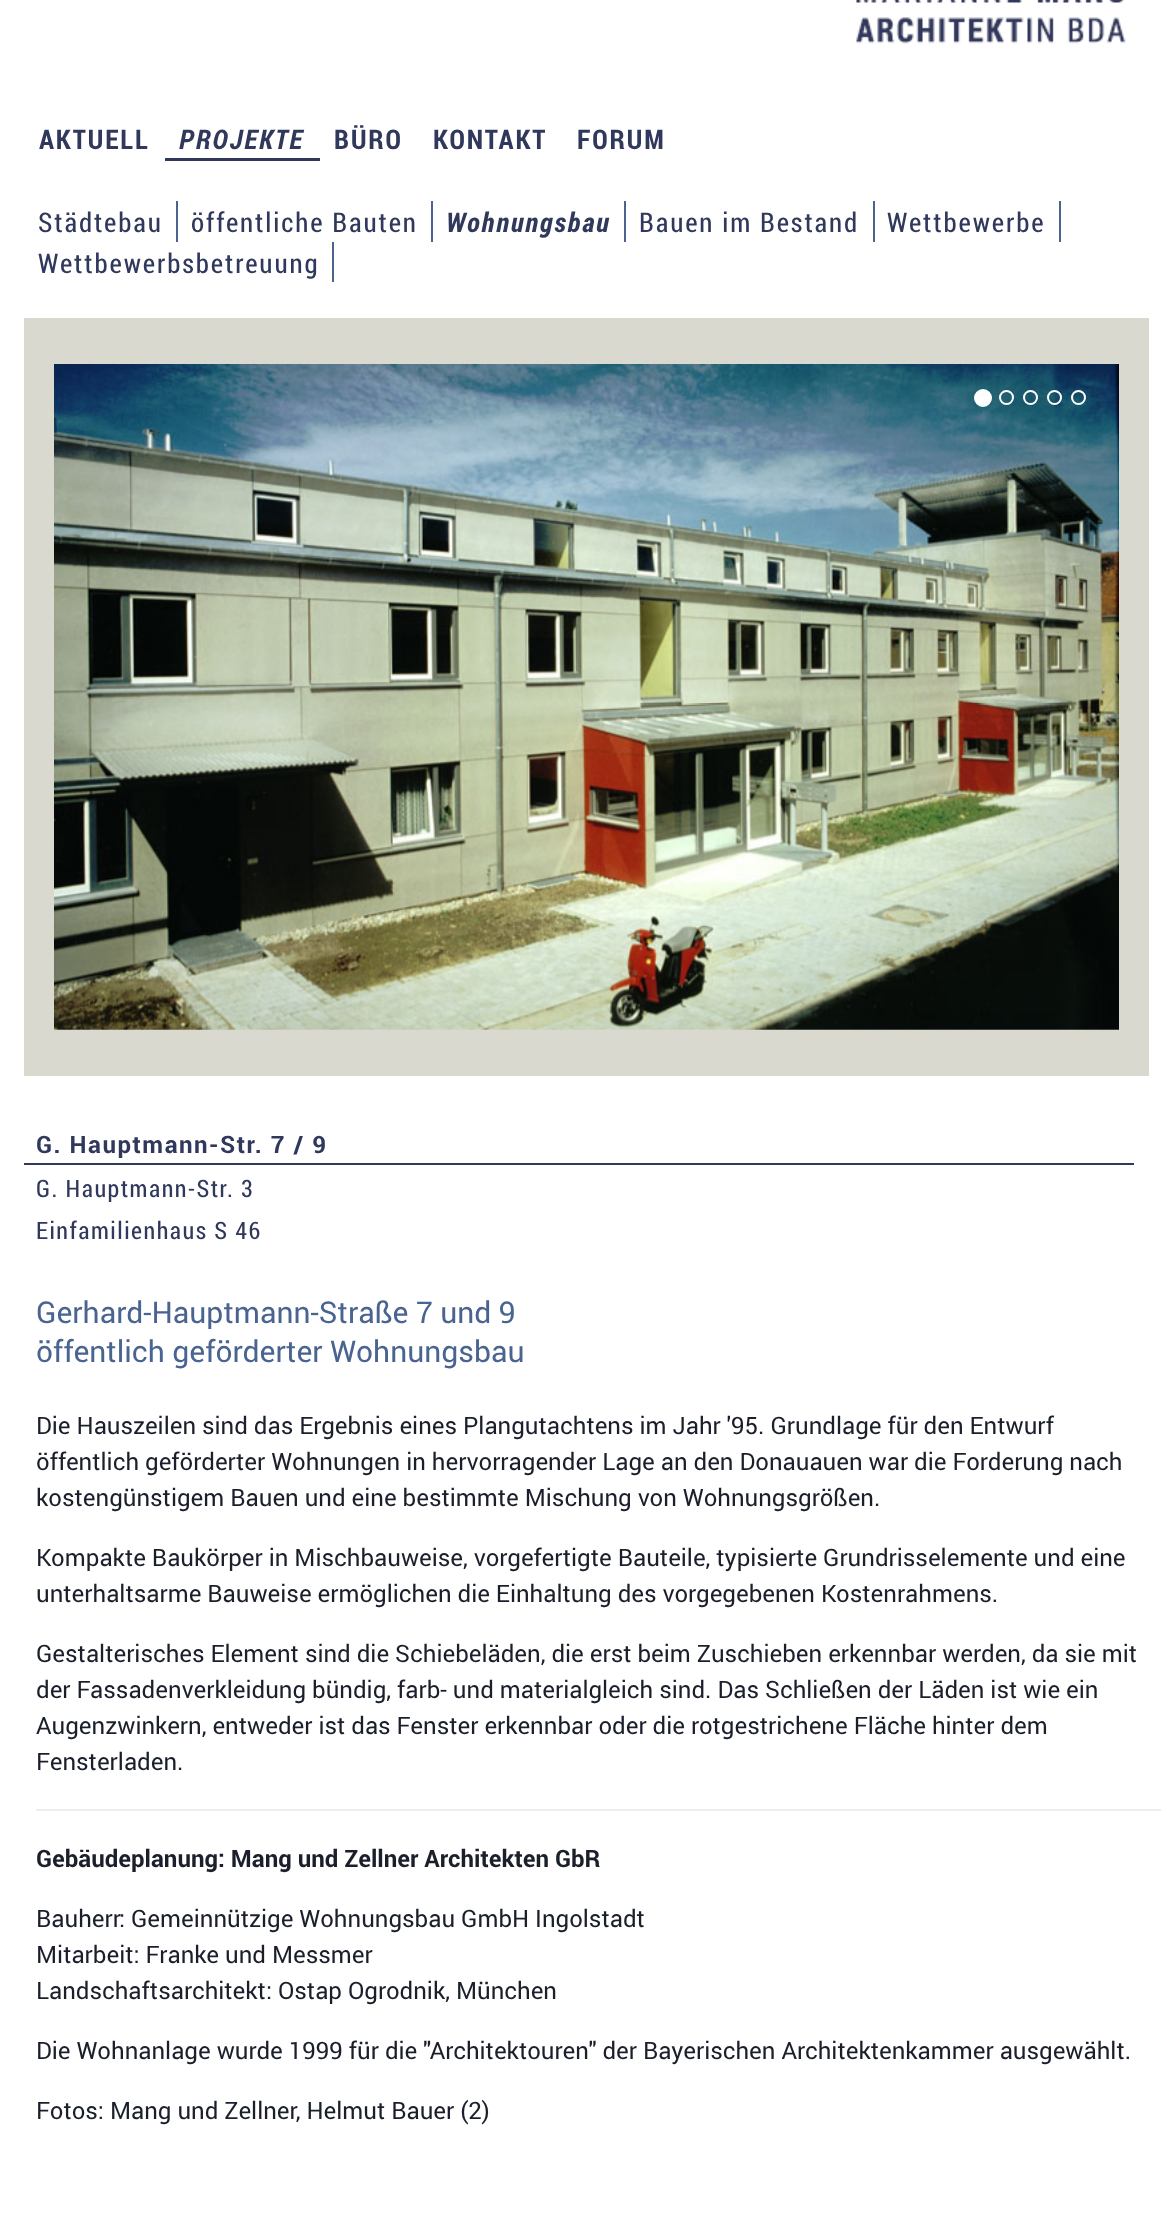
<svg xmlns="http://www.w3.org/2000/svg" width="1172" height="2225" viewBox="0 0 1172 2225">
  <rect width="100%" height="100%" fill="#ffffff"/>
  <image x="856" y="0" width="270" height="44" href="img1.png"/>
  <text x="39" y="149" font-family="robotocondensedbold" font-size="27" font-weight="bold" letter-spacing="1.9" fill="#30395c">AKTUELL</text>
  <rect x="165" y="158" width="155" height="3" fill="#30395c"/>
  <text x="179" y="149" font-family="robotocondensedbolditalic" font-size="27" font-weight="bold" font-style="italic" letter-spacing="1.9" fill="#30395c">PROJEKTE</text>
  <text x="334" y="149" font-family="robotocondensedbold" font-size="27" font-weight="bold" letter-spacing="1.9" fill="#30395c">BÜRO</text>
  <text x="433" y="149" font-family="robotocondensedbold" font-size="27" font-weight="bold" letter-spacing="1.9" fill="#30395c">KONTAKT</text>
  <text x="577" y="149" font-family="robotocondensedbold" font-size="27" font-weight="bold" letter-spacing="1.9" fill="#30395c">FORUM</text>
  <rect x="176" y="201" width="2" height="41" fill="#4a6491"/>
  <text x="38" y="232" font-family="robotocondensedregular" font-size="27" letter-spacing="1.9" fill="#30395c">Städtebau</text>
  <rect x="431" y="201" width="2" height="41" fill="#4a6491"/>
  <text x="191" y="232" font-family="robotocondensedregular" font-size="27" letter-spacing="1.9" fill="#30395c">öffentliche Bauten</text>
  <rect x="624" y="201" width="2" height="41" fill="#4a6491"/>
  <text x="446" y="232" font-family="robotocondensedbolditalic" font-size="27" font-weight="bold" font-style="italic" letter-spacing="1.9" fill="#30395c">Wohnungsbau</text>
  <rect x="873" y="201" width="2" height="41" fill="#4a6491"/>
  <text x="639" y="232" font-family="robotocondensedregular" font-size="27" letter-spacing="1.9" fill="#30395c">Bauen im Bestand</text>
  <rect x="1059" y="201" width="2" height="41" fill="#4a6491"/>
  <text x="887" y="232" font-family="robotocondensedregular" font-size="27" letter-spacing="1.9" fill="#30395c">Wettbewerbe</text>
  <rect x="332" y="242" width="2" height="40" fill="#4a6491"/>
  <text x="38" y="273" font-family="robotocondensedregular" font-size="27" letter-spacing="1.9" fill="#30395c">Wettbewerbsbetreuung</text>
  <rect x="24" y="318" width="1125" height="758" fill="#dad9cf"/>
  <image x="54" y="364" width="1065" height="666" href="img2.png"/>
  <circle cx="983" cy="398" r="8" fill="#ffffff" stroke="#ffffff" stroke-width="2"/>
  <circle cx="1006.5" cy="397.5" r="6.5" fill="none" stroke="#ffffff" stroke-width="2"/>
  <circle cx="1030.5" cy="397.5" r="6.5" fill="none" stroke="#ffffff" stroke-width="2"/>
  <circle cx="1054.5" cy="397.5" r="6.5" fill="none" stroke="#ffffff" stroke-width="2"/>
  <circle cx="1078.5" cy="397.5" r="6.5" fill="none" stroke="#ffffff" stroke-width="2"/>
  <rect x="24" y="1163" width="1110" height="2" fill="#30395c"/>
  <text x="36" y="1153" font-family="roboto" font-size="24" font-weight="bold" letter-spacing="1.5" fill="#30395c">G. Hauptmann-Str. 7 / 9</text>
  <text x="36" y="1197" font-family="robotocondensedregular" font-size="24" letter-spacing="1.5" fill="#30395c">G. Hauptmann-Str. 3</text>
  <text x="36" y="1239" font-family="robotocondensedregular" font-size="24" letter-spacing="1.5" fill="#30395c">Einfamilienhaus S 46</text>
  <text x="36" y="1323" font-family="roboto" font-size="30" fill="#4a6491">Gerhard-Hauptmann-Straße 7 und 9</text>
  <text x="36" y="1362" font-family="roboto" font-size="30" fill="#4a6491">öffentlich geförderter Wohnungsbau</text>
  <text x="36" y="1434" font-family="roboto" font-size="24" fill="#1a1f2b">Die Hauszeilen sind das Ergebnis eines Plangutachtens im Jahr '95. Grundlage für den Entwurf</text>
  <text x="36" y="1470" font-family="roboto" font-size="24" fill="#1a1f2b">öffentlich geförderter Wohnungen in hervorragender Lage an den Donauauen war die Forderung nach</text>
  <text x="36" y="1506" font-family="roboto" font-size="24" fill="#1a1f2b">kostengünstigem Bauen und eine bestimmte Mischung von Wohnungsgrößen.</text>
  <text x="36" y="1566" font-family="roboto" font-size="24" fill="#1a1f2b">Kompakte Baukörper in Mischbauweise, vorgefertigte Bauteile, typisierte Grundrisselemente und eine</text>
  <text x="36" y="1602" font-family="roboto" font-size="24" fill="#1a1f2b">unterhaltsarme Bauweise ermöglichen die Einhaltung des vorgegebenen Kostenrahmens.</text>
  <text x="36" y="1662" font-family="roboto" font-size="24" fill="#1a1f2b">Gestalterisches Element sind die Schiebeläden, die erst beim Zuschieben erkennbar werden, da sie mit</text>
  <text x="36" y="1698" font-family="roboto" font-size="24" fill="#1a1f2b">der Fassadenverkleidung bündig, farb- und materialgleich sind. Das Schließen der Läden ist wie ein</text>
  <text x="36" y="1734" font-family="roboto" font-size="24" fill="#1a1f2b">Augenzwinkern, entweder ist das Fenster erkennbar oder die rotgestrichene Fläche hinter dem</text>
  <text x="36" y="1770" font-family="roboto" font-size="24" fill="#1a1f2b">Fensterladen.</text>
  <rect x="36" y="1809" width="1125" height="2" fill="#eeeeee"/>
  <text x="36" y="1867" font-family="roboto" font-size="24" font-weight="bold" fill="#1a1f2b">Gebäudeplanung: Mang und Zellner Architekten GbR</text>
  <text x="36" y="1927" font-family="roboto" font-size="24" fill="#1a1f2b">Bauherr: Gemeinnützige Wohnungsbau GmbH Ingolstadt</text>
  <text x="36" y="1963" font-family="roboto" font-size="24" fill="#1a1f2b">Mitarbeit: Franke und Messmer</text>
  <text x="36" y="1999" font-family="roboto" font-size="24" fill="#1a1f2b">Landschaftsarchitekt: Ostap Ogrodnik, München</text>
  <text x="36" y="2059" font-family="roboto" font-size="24" fill="#1a1f2b">Die Wohnanlage wurde 1999 für die "Architektouren" der Bayerischen Architektenkammer ausgewählt.</text>
  <text x="36" y="2119" font-family="roboto" font-size="24" fill="#1a1f2b">Fotos: Mang und Zellner, Helmut Bauer (2)</text>
</svg>
